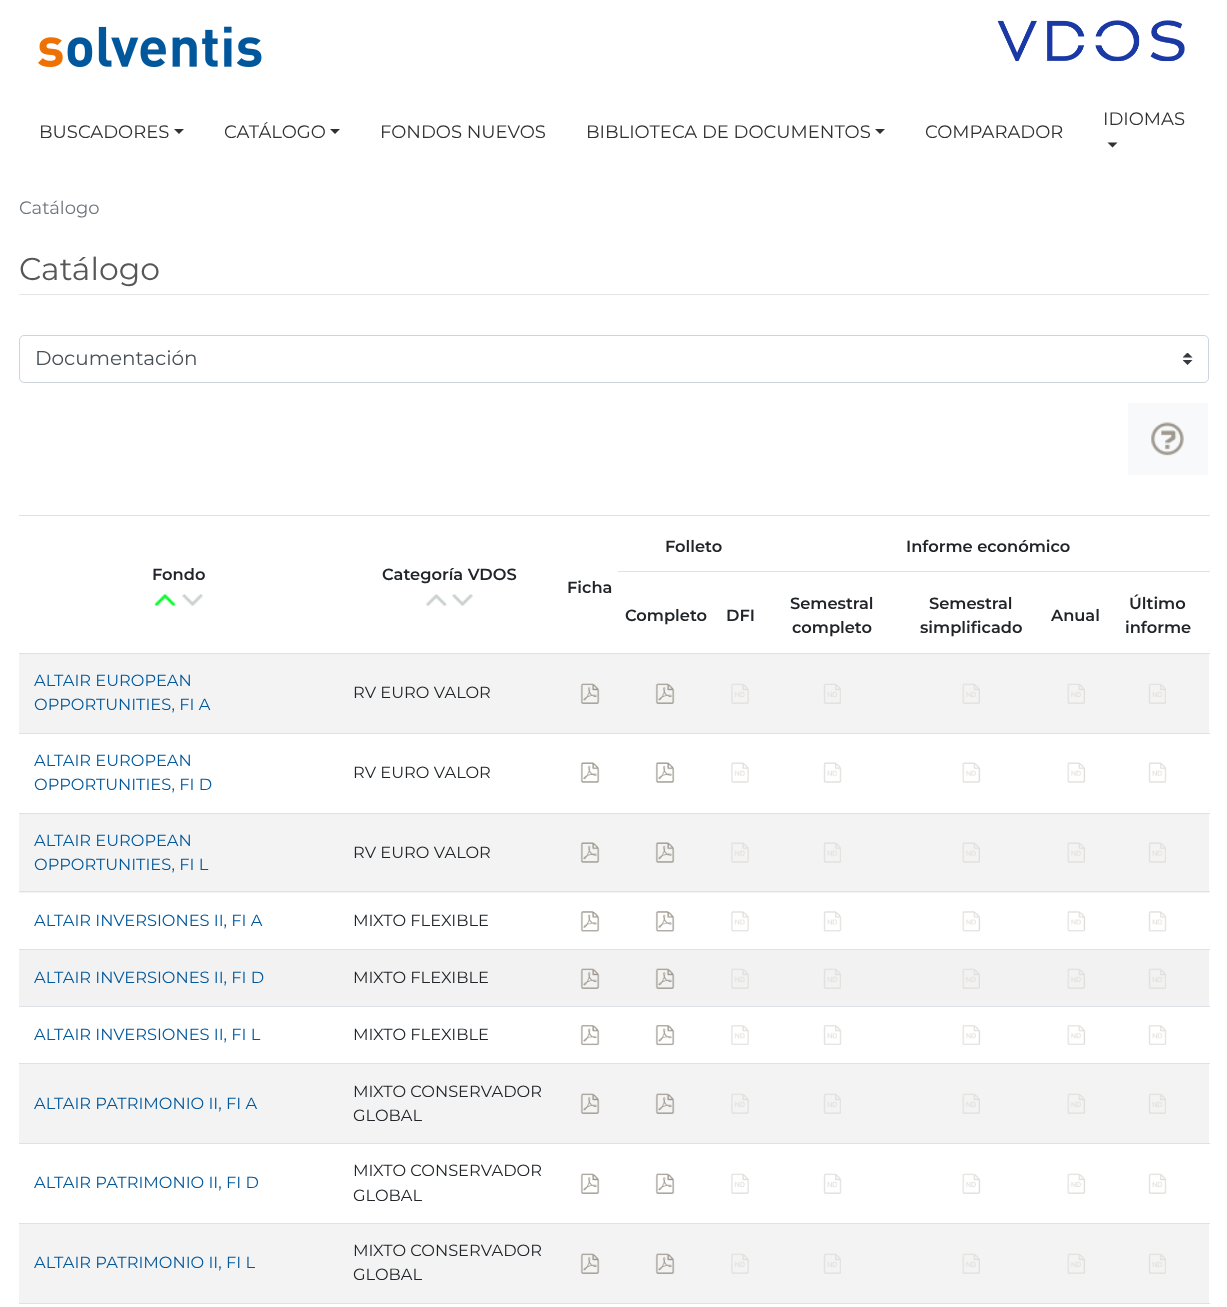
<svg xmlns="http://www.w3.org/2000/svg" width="1227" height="1307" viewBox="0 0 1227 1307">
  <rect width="100%" height="100%" fill="#ffffff"/>
  <image x="38" y="26" width="224" height="41" href="img1.png"/>
  <image x="997" y="20" width="188" height="42" href="img2.png"/>
  <text x="1103" y="125" font-family="Montserrat" font-size="18" fill="#303133">IDIOMAS</text>
  <path d="M1107.5 142.5H1117.5L1112.5 147.5Z" fill="#303133"/>
  <text x="39" y="138" font-family="Montserrat" font-size="18" fill="#303133">BUSCADORES</text>
  <path d="M174 129H184L179 134Z" fill="#303133"/>
  <text x="224" y="138" font-family="Montserrat" font-size="18" fill="#303133">CATÁLOGO</text>
  <path d="M330 129H340L335 134Z" fill="#303133"/>
  <text x="380" y="138" font-family="Montserrat" font-size="18" fill="#303133">FONDOS NUEVOS</text>
  <text x="586" y="138" font-family="Montserrat" font-size="18" fill="#303133">BIBLIOTECA DE DOCUMENTOS</text>
  <path d="M875 129H885L880 134Z" fill="#303133"/>
  <text x="925" y="138" font-family="Montserrat" font-size="18" fill="#303133">COMPARADOR</text>
  <text x="19" y="214" font-family="Montserrat" font-size="18" fill="#6c757d">Catálogo</text>
  <rect x="19" y="294" width="1190" height="1" fill="#e5e5e5"/>
  <text x="19" y="280" font-family="Montserrat" font-size="31.5" fill="#575756">Catálogo</text>
  <image x="1183" y="353" width="10" height="12" href="img3.png"/>
  <rect x="19.5" y="335.5" width="1189" height="47" rx="4.5" fill="none" stroke="#ced4da"/>
  <text x="35" y="365" font-family="Montserrat" font-size="20" fill="#495057">Documentación</text>
  <rect x="1128" y="403" width="80" height="72" fill="#f8f9fa"/>
  <image x="1151" y="422" width="33" height="34" href="img4.png"/>
  <text x="665" y="552" font-family="Montserrat" font-size="16.25" font-weight="600" fill="#212529">Folleto</text>
  <rect x="19" y="515" width="1191" height="1" fill="#dee2e6"/>
  <text x="906" y="552" font-family="Montserrat" font-size="16.25" font-weight="600" fill="#212529">Informe económico</text>
  <text x="152" y="580" font-family="Montserrat" font-size="16.25" font-weight="600" fill="#212529">Fondo</text>
  <image x="154" y="593" width="22" height="14" href="img5.png"/>
  <image x="182" y="594" width="21" height="12" href="img6.png"/>
  <text x="382" y="580" font-family="Montserrat" font-size="16.25" font-weight="600" fill="#212529">Categoría VDOS</text>
  <image x="426" y="594" width="21" height="12" href="img7.png"/>
  <image x="452" y="594" width="21" height="12" href="img6.png"/>
  <text x="567" y="593" font-family="Montserrat" font-size="16.25" font-weight="600" fill="#212529">Ficha</text>
  <text x="625" y="621" font-family="Montserrat" font-size="16.25" font-weight="600" fill="#212529">Completo</text>
  <text x="726" y="621" font-family="Montserrat" font-size="16.25" font-weight="600" fill="#212529">DFI</text>
  <text x="790" y="609" font-family="Montserrat" font-size="16.25" font-weight="600" fill="#212529">Semestral</text>
  <text x="792" y="633" font-family="Montserrat" font-size="16.25" font-weight="600" fill="#212529">completo</text>
  <text x="929" y="609" font-family="Montserrat" font-size="16.25" font-weight="600" fill="#212529">Semestral</text>
  <text x="920" y="633" font-family="Montserrat" font-size="16.25" font-weight="600" fill="#212529">simplificado</text>
  <text x="1051" y="621" font-family="Montserrat" font-size="16.25" font-weight="600" fill="#212529">Anual</text>
  <rect x="618" y="571" width="592" height="1" fill="#dee2e6"/>
  <text x="1129" y="609" font-family="Montserrat" font-size="16.25" font-weight="600" fill="#212529">Último</text>
  <text x="1125" y="633" font-family="Montserrat" font-size="16.25" font-weight="600" fill="#212529">informe</text>
  <rect x="19" y="654" width="1190" height="79" fill="#f3f3f3"/>
  <rect x="19" y="653" width="1191" height="1" fill="#dee2e6"/>
  <image x="1148" y="683" width="18" height="21" href="img8.png"/>
  <text x="34" y="686" font-family="Montserrat" font-size="16.25" fill="#00579b">ALTAIR EUROPEAN</text>
  <text x="34" y="710" font-family="Montserrat" font-size="16.25" fill="#00579b">OPPORTUNITIES, FI A</text>
  <text x="353" y="698" font-family="Montserrat" font-size="16.25" fill="#212529">RV EURO VALOR</text>
  <image x="580" y="683" width="20" height="21" href="img9.png"/>
  <image x="655" y="683" width="20" height="21" href="img9.png"/>
  <image x="731" y="683" width="18" height="21" href="img10.png"/>
  <image x="823" y="683" width="18" height="21" href="img8.png"/>
  <image x="962" y="683" width="18" height="21" href="img11.png"/>
  <image x="1067" y="683" width="18" height="21" href="img11.png"/>
  <rect x="19" y="733" width="1191" height="1" fill="#dee2e6"/>
  <image x="1148" y="762" width="19" height="21" href="img12.png"/>
  <text x="34" y="766" font-family="Montserrat" font-size="16.25" fill="#00579b">ALTAIR EUROPEAN</text>
  <text x="34" y="790" font-family="Montserrat" font-size="16.25" fill="#00579b">OPPORTUNITIES, FI D</text>
  <text x="353" y="778" font-family="Montserrat" font-size="16.25" fill="#212529">RV EURO VALOR</text>
  <image x="580" y="762" width="20" height="21" href="img13.png"/>
  <image x="655" y="762" width="20" height="21" href="img13.png"/>
  <image x="731" y="762" width="18" height="21" href="img14.png"/>
  <image x="823" y="762" width="19" height="21" href="img12.png"/>
  <image x="962" y="762" width="19" height="21" href="img15.png"/>
  <image x="1067" y="762" width="19" height="21" href="img15.png"/>
  <rect x="19" y="814" width="1190" height="79" fill="#f3f3f3"/>
  <rect x="19" y="813" width="1191" height="1" fill="#dee2e6"/>
  <image x="1148" y="842" width="18" height="21" href="img16.png"/>
  <text x="34" y="846" font-family="Montserrat" font-size="16.25" fill="#00579b">ALTAIR EUROPEAN</text>
  <text x="34" y="870" font-family="Montserrat" font-size="16.25" fill="#00579b">OPPORTUNITIES, FI L</text>
  <text x="353" y="858" font-family="Montserrat" font-size="16.25" fill="#212529">RV EURO VALOR</text>
  <image x="580" y="842" width="20" height="21" href="img17.png"/>
  <image x="655" y="842" width="20" height="21" href="img17.png"/>
  <image x="731" y="842" width="18" height="21" href="img18.png"/>
  <image x="823" y="842" width="18" height="21" href="img16.png"/>
  <image x="962" y="842" width="18" height="21" href="img19.png"/>
  <image x="1067" y="842" width="18" height="21" href="img19.png"/>
  <rect x="19" y="891" width="1191" height="1" fill="#dee2e6"/>
  <image x="1148" y="911" width="19" height="21" href="img20.png"/>
  <text x="34" y="926" font-family="Montserrat" font-size="16.25" fill="#00579b">ALTAIR INVERSIONES II, FI A</text>
  <text x="353" y="926" font-family="Montserrat" font-size="16.25" fill="#212529">MIXTO FLEXIBLE</text>
  <image x="580" y="911" width="20" height="21" href="img21.png"/>
  <image x="655" y="911" width="20" height="21" href="img21.png"/>
  <image x="731" y="911" width="18" height="21" href="img22.png"/>
  <image x="823" y="911" width="19" height="21" href="img20.png"/>
  <image x="962" y="911" width="19" height="21" href="img23.png"/>
  <image x="1067" y="911" width="19" height="21" href="img23.png"/>
  <rect x="19" y="950" width="1190" height="56" fill="#f2f2f2"/>
  <rect x="19" y="949" width="1191" height="1" fill="#dee2e6"/>
  <image x="1148" y="968" width="18" height="21" href="img24.png"/>
  <text x="34" y="983" font-family="Montserrat" font-size="16.25" fill="#00579b">ALTAIR INVERSIONES II, FI D</text>
  <text x="353" y="983" font-family="Montserrat" font-size="16.25" fill="#212529">MIXTO FLEXIBLE</text>
  <image x="580" y="968" width="20" height="21" href="img25.png"/>
  <image x="655" y="968" width="20" height="21" href="img25.png"/>
  <image x="731" y="968" width="18" height="21" href="img26.png"/>
  <image x="823" y="968" width="18" height="21" href="img24.png"/>
  <image x="962" y="968" width="18" height="21" href="img27.png"/>
  <image x="1067" y="968" width="18" height="21" href="img27.png"/>
  <rect x="19" y="1006" width="1191" height="1" fill="#dee2e6"/>
  <image x="1148" y="1025" width="19" height="20" href="img28.png"/>
  <text x="34" y="1040" font-family="Montserrat" font-size="16.25" fill="#00579b">ALTAIR INVERSIONES II, FI L</text>
  <text x="353" y="1040" font-family="Montserrat" font-size="16.25" fill="#212529">MIXTO FLEXIBLE</text>
  <image x="580" y="1025" width="20" height="21" href="img29.png"/>
  <image x="655" y="1025" width="20" height="21" href="img29.png"/>
  <image x="731" y="1025" width="18" height="20" href="img30.png"/>
  <image x="823" y="1025" width="19" height="20" href="img28.png"/>
  <image x="962" y="1025" width="19" height="20" href="img31.png"/>
  <image x="1067" y="1025" width="19" height="20" href="img31.png"/>
  <rect x="19" y="1064" width="1190" height="79" fill="#f3f3f3"/>
  <rect x="19" y="1063" width="1191" height="1" fill="#dee2e6"/>
  <image x="1148" y="1093" width="18" height="21" href="img8.png"/>
  <text x="34" y="1109" font-family="Montserrat" font-size="16.25" fill="#00579b">ALTAIR PATRIMONIO II, FI A</text>
  <text x="353" y="1097" font-family="Montserrat" font-size="16.25" fill="#212529">MIXTO CONSERVADOR</text>
  <text x="353" y="1121" font-family="Montserrat" font-size="16.25" fill="#212529">GLOBAL</text>
  <image x="580" y="1093" width="20" height="21" href="img9.png"/>
  <image x="655" y="1093" width="20" height="21" href="img9.png"/>
  <image x="731" y="1093" width="18" height="21" href="img10.png"/>
  <image x="823" y="1093" width="18" height="21" href="img8.png"/>
  <image x="962" y="1093" width="18" height="21" href="img11.png"/>
  <image x="1067" y="1093" width="18" height="21" href="img11.png"/>
  <rect x="19" y="1143" width="1191" height="1" fill="#dee2e6"/>
  <image x="1148" y="1173" width="19" height="21" href="img32.png"/>
  <text x="34" y="1188" font-family="Montserrat" font-size="16.25" fill="#00579b">ALTAIR PATRIMONIO II, FI D</text>
  <text x="353" y="1176" font-family="Montserrat" font-size="16.25" fill="#212529">MIXTO CONSERVADOR</text>
  <text x="353" y="1201" font-family="Montserrat" font-size="16.25" fill="#212529">GLOBAL</text>
  <image x="580" y="1173" width="20" height="21" href="img33.png"/>
  <image x="655" y="1173" width="20" height="21" href="img33.png"/>
  <image x="731" y="1173" width="18" height="21" href="img34.png"/>
  <image x="823" y="1173" width="19" height="21" href="img32.png"/>
  <image x="962" y="1173" width="19" height="21" href="img35.png"/>
  <image x="1067" y="1173" width="19" height="21" href="img35.png"/>
  <rect x="19" y="1224" width="1190" height="79" fill="#f3f3f3"/>
  <rect x="19" y="1223" width="1191" height="1" fill="#dee2e6"/>
  <image x="1148" y="1253" width="18" height="21" href="img8.png"/>
  <text x="34" y="1268" font-family="Montserrat" font-size="16.25" fill="#00579b">ALTAIR PATRIMONIO II, FI L</text>
  <text x="353" y="1256" font-family="Montserrat" font-size="16.25" fill="#212529">MIXTO CONSERVADOR</text>
  <text x="353" y="1280" font-family="Montserrat" font-size="16.25" fill="#212529">GLOBAL</text>
  <image x="580" y="1253" width="20" height="21" href="img9.png"/>
  <image x="655" y="1253" width="20" height="21" href="img9.png"/>
  <image x="731" y="1253" width="18" height="21" href="img10.png"/>
  <image x="823" y="1253" width="18" height="21" href="img8.png"/>
  <image x="962" y="1253" width="18" height="21" href="img11.png"/>
  <image x="1067" y="1253" width="18" height="21" href="img11.png"/>
  <rect x="19" y="1303" width="1191" height="1" fill="#dee2e6"/>
</svg>
